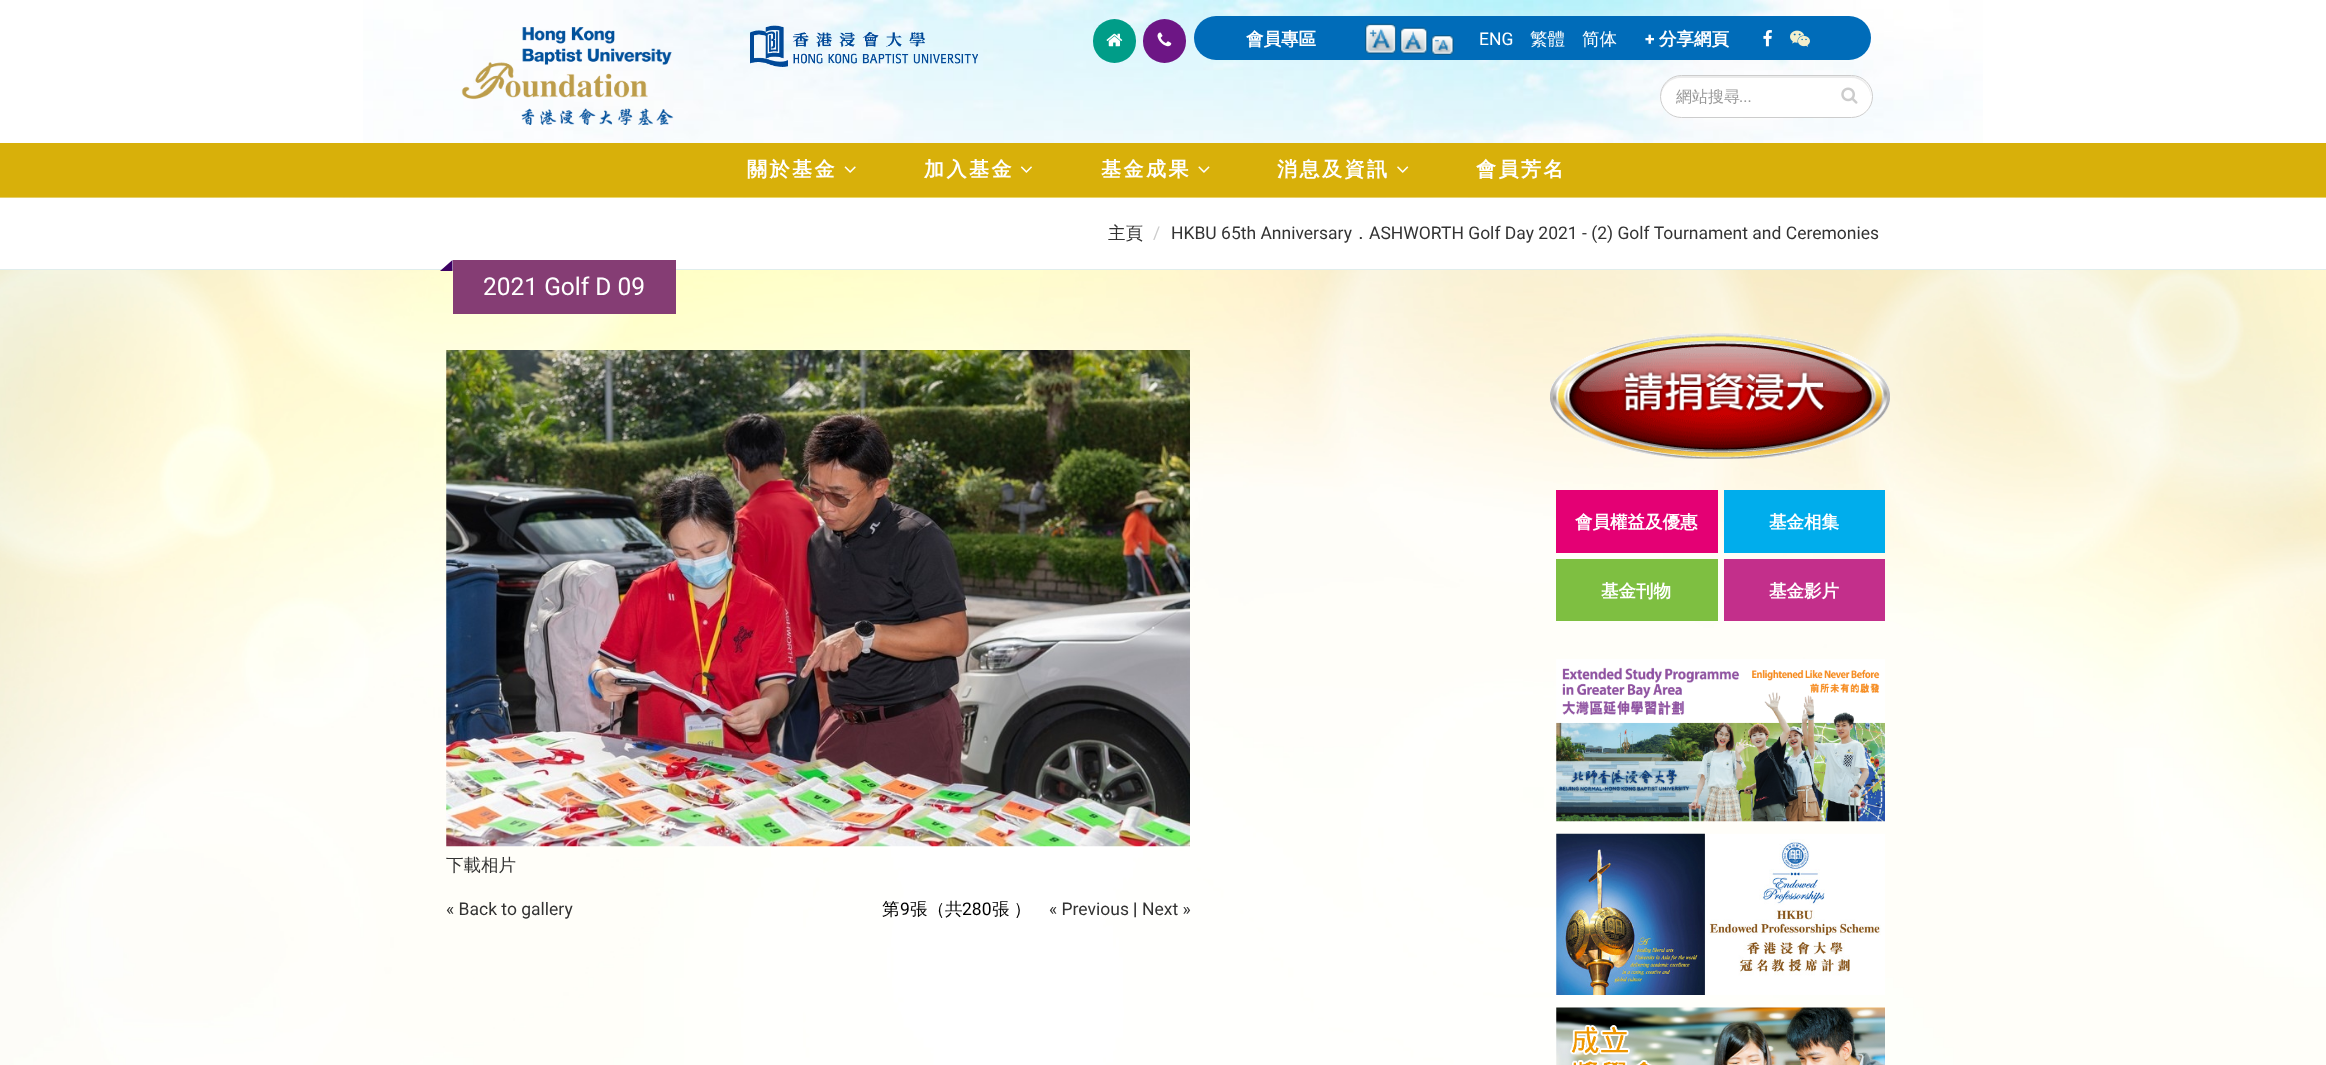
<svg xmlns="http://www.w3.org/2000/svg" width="2326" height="1065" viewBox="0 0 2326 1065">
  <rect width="100%" height="100%" fill="#ffffff"/>
  <image x="363" y="0" width="1620" height="143" href="img1.png"/>
  <image x="461" y="27" width="213" height="98" href="img2.png"/>
  <image x="750" y="25" width="228" height="42" href="img3.png"/>
  <rect x="1093" y="19" width="43" height="44" rx="21.5" fill="#009d88"/>
  <image x="1106" y="33" width="17" height="14" href="img4.png"/>
  <rect x="1143" y="19" width="43" height="44" rx="21.5" fill="#6d1685"/>
  <image x="1157" y="32" width="15" height="15" href="img5.png"/>
  <rect x="1194" y="16" width="677" height="44" rx="22" fill="#006cb9"/>
  <text x="1246" y="45" font-family="WenQuanYi Zen Hei" font-size="17.5" font-weight="bold" fill="#ffffff">會員專區</text>
  <image x="1365" y="23" width="32" height="31" href="img6.png"/>
  <image x="1400" y="27" width="28" height="27" href="img7.png"/>
  <image x="1431" y="35" width="23" height="20" href="img8.png"/>
  <text x="1479" y="45" font-family="Roboto" font-size="17.5" fill="#ffffff">ENG</text>
  <text x="1530" y="45" font-family="WenQuanYi Zen Hei" font-size="17.5" font-weight="500" fill="#ffffff">繁體</text>
  <text x="1582" y="45" font-family="WenQuanYi Zen Hei" font-size="17.5" font-weight="500" fill="#ffffff">简体</text>
  <text x="1645" y="45" font-family="Roboto" font-size="17.5" font-weight="bold" fill="#ffffff">+</text>
  <text x="1659" y="45" font-family="WenQuanYi Zen Hei" font-size="17.5" font-weight="bold" fill="#ffffff">分享網頁</text>
  <image x="1763" y="30" width="9" height="17" href="img9.png"/>
  <image x="1790" y="30" width="20" height="17" href="img10.png"/>
  <rect x="1660" y="75" width="213" height="43" rx="21.5" fill="#ffffff"/>
  <path d="M1681 78H1851C1862 78 1870 86 1871 97V96C1871 85 1862 76 1851 76H1681C1670 76 1661 85 1661 96V97C1662 86 1670 78 1681 78Z" fill="#ececec"/>
  <rect x="1660.5" y="75.5" width="212" height="42" rx="21" fill="none" stroke="#cccccc"/>
  <text x="1676" y="102" font-family="WenQuanYi Zen Hei" font-size="16" font-weight="500" fill="#999999">網站搜尋</text>
  <text x="1739" y="102" font-family="Roboto" font-size="16" fill="#999999">...</text>
  <image x="1841" y="87" width="17" height="17" href="img11.png"/>
  <rect x="0" y="143" width="2326" height="55" fill="#d8b00a"/>
  <text x="747" y="176" font-family="WenQuanYi Zen Hei" font-size="20" font-weight="bold" letter-spacing="2.5" fill="#ffffff">關於基金</text>
  <image x="844" y="166" width="12" height="7" href="img12.png"/>
  <text x="924" y="176" font-family="WenQuanYi Zen Hei" font-size="20" font-weight="bold" letter-spacing="2.5" fill="#ffffff">加入基金</text>
  <image x="1020" y="166" width="12" height="7" href="img13.png"/>
  <text x="1101" y="176" font-family="WenQuanYi Zen Hei" font-size="20" font-weight="bold" letter-spacing="2.5" fill="#ffffff">基金成果</text>
  <image x="1198" y="166" width="12" height="7" href="img14.png"/>
  <text x="1277" y="176" font-family="WenQuanYi Zen Hei" font-size="20" font-weight="bold" letter-spacing="2.5" fill="#ffffff">消息及資訊</text>
  <image x="1397" y="166" width="12" height="7" href="img15.png"/>
  <text x="1476" y="176" font-family="WenQuanYi Zen Hei" font-size="20" font-weight="bold" letter-spacing="2.5" fill="#ffffff">會員芳名</text>
  <image x="0" y="197" width="2326" height="868" href="img16.png"/>
  <rect x="0" y="198" width="2326" height="71" fill="#ffffff"/>
  <rect x="0" y="269" width="2326" height="1" fill="#e0eded"/>
  <text x="1108" y="239" font-family="WenQuanYi Zen Hei" font-size="17.5" font-weight="500" fill="#333333">主頁</text>
  <text x="1153" y="239" font-family="Roboto" font-size="17.5" fill="#cccccc">/</text>
  <text x="1171" y="239" font-family="Roboto" font-size="17.5" fill="#333333">HKBU 65th Anniversary</text>
  <text x="1352" y="239" font-family="WenQuanYi Zen Hei" font-size="17.5" font-weight="500" fill="#333333">．</text>
  <text x="1369" y="239" font-family="Roboto" font-size="17.5" fill="#333333">ASHWORTH Golf Day 2021 - (2) Golf Tournament and Ceremonies</text>
  <rect x="453" y="260" width="223" height="54" fill="#853d74"/>
  <path d="M452.5 260V271H440Z" fill="#3c0062"/>
  <text x="483" y="295" font-family="Roboto" font-size="24.5" fill="#ffffff">2021 Golf D 09</text>
  <image x="1550" y="333" width="340" height="126" href="img17.png"/>
  <rect x="1556" y="490" width="162" height="63" fill="#e40074"/>
  <text x="1575" y="528" font-family="WenQuanYi Zen Hei" font-size="17.5" font-weight="bold" fill="#ffffff">會員權益及優惠</text>
  <rect x="1724" y="490" width="161" height="63" fill="#00adec"/>
  <text x="1769" y="528" font-family="WenQuanYi Zen Hei" font-size="17.5" font-weight="bold" fill="#ffffff">基金相集</text>
  <rect x="1556" y="559" width="162" height="62" fill="#7ebf41"/>
  <text x="1601" y="597" font-family="WenQuanYi Zen Hei" font-size="17.5" font-weight="bold" fill="#ffffff">基金刊物</text>
  <rect x="1724" y="559" width="161" height="62" fill="#c32f8b"/>
  <text x="1769" y="597" font-family="WenQuanYi Zen Hei" font-size="17.5" font-weight="bold" fill="#ffffff">基金影片</text>
  <image x="1556" y="659" width="329" height="163" href="img18.png"/>
  <image x="1556" y="833" width="329" height="162" href="img19.png"/>
  <image x="1556" y="1007" width="329" height="58" href="img20.png"/>
  <image x="446" y="350" width="744" height="497" href="img21.png"/>
  <text x="446" y="871" font-family="WenQuanYi Zen Hei" font-size="17.5" font-weight="500" fill="#333333">下載相片</text>
  <text x="446" y="915" font-family="Roboto" font-size="17.5" fill="#333333">« Back to gallery</text>
  <text x="882" y="915" font-family="WenQuanYi Zen Hei" font-size="17.5" font-weight="500" fill="#000000">第</text>
  <text x="900" y="915" font-family="Roboto" font-size="17.5" fill="#000000">9</text>
  <text x="910" y="915" font-family="WenQuanYi Zen Hei" font-size="17.5" font-weight="500" fill="#000000">張（共</text>
  <text x="962" y="915" font-family="Roboto" font-size="17.5" fill="#000000">280</text>
  <text x="992" y="915" word-spacing="-1" font-family="WenQuanYi Zen Hei" font-size="17.5" font-weight="500" fill="#000000">張 ）</text>
  <text x="1049" y="915" font-family="Roboto" font-size="17.5" fill="#333333">« Previous</text>
  <text x="1133" y="915" font-family="Roboto" font-size="17.5" fill="#000000">|</text>
  <text x="1142" y="915" font-family="Roboto" font-size="17.5" fill="#333333">Next »</text>
</svg>
